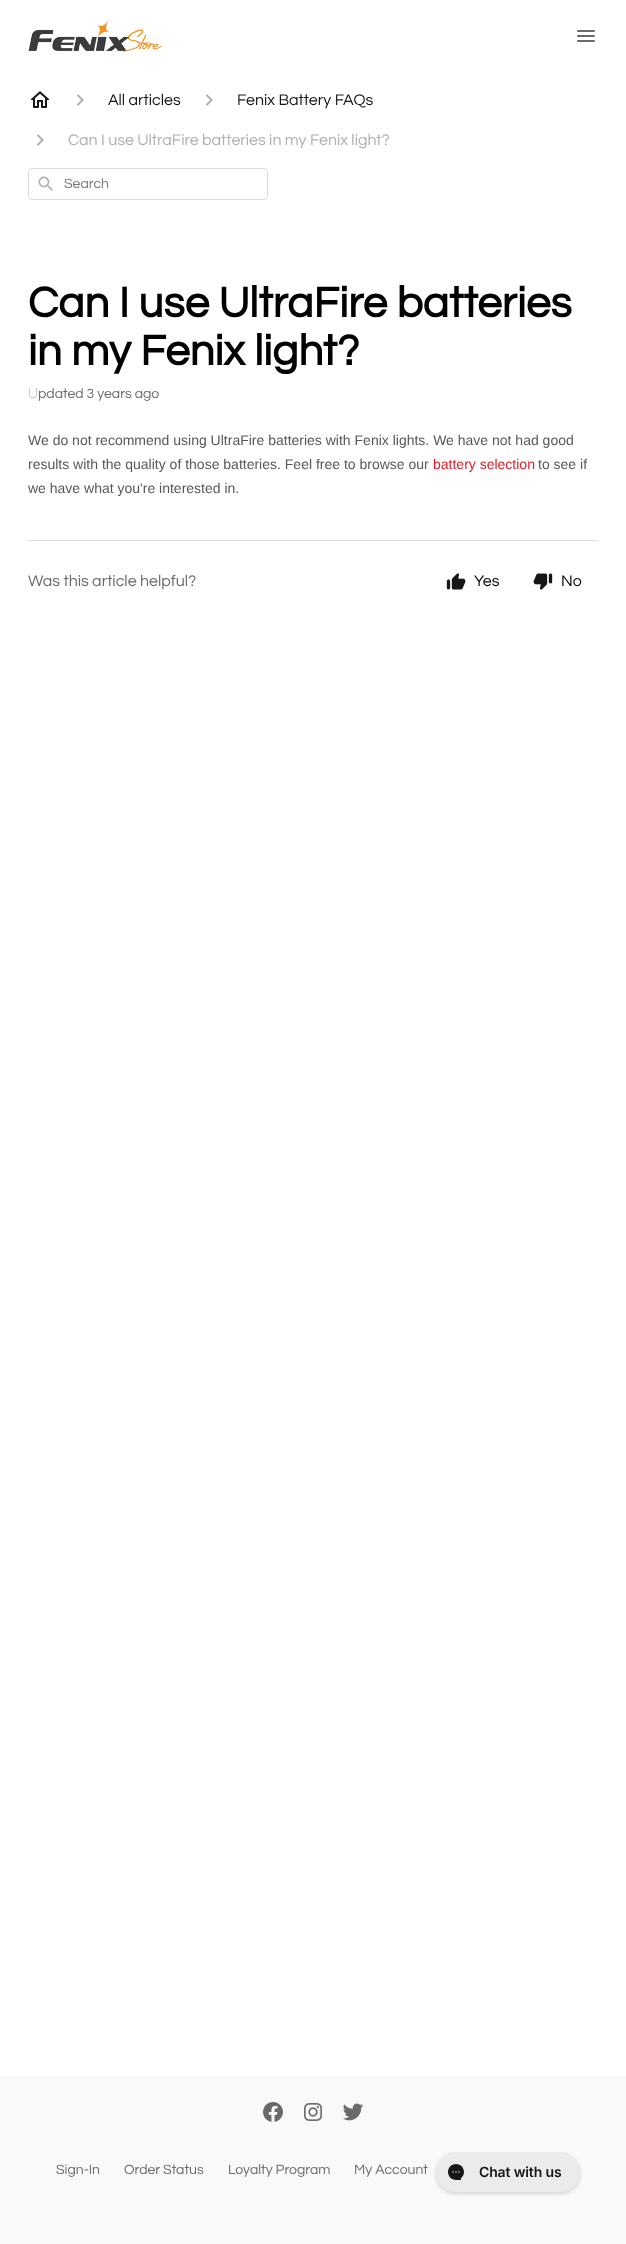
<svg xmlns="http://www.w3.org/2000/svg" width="626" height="2244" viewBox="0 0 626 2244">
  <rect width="100%" height="100%" fill="#ffffff"/>
  <image x="28" y="20" width="134" height="32" href="img1.png"/>
  <image x="577" y="30" width="18" height="12" href="img2.png"/>
  <image x="30" y="91" width="20" height="17" href="img3.png"/>
  <image x="77" y="94" width="7" height="12" href="img4.png"/>
  <text x="108" y="105" font-family="Questrial" font-size="16" fill="#161616">All articles</text>
  <image x="206" y="94" width="7" height="12" href="img4.png"/>
  <text x="237" y="105" font-family="Questrial" font-size="16" fill="#161616">Fenix Battery FAQs</text>
  <image x="37" y="134" width="7" height="12" href="img4.png"/>
  <text x="68" y="145" font-family="Questrial" font-size="16" fill="#afafaf">Can I use UltraFire batteries in my Fenix light?</text>
  <rect x="28.5" y="168.5" width="239" height="31" rx="3.5" fill="none" stroke="#dddddd"/>
  <image x="38" y="176" width="15" height="15" href="img5.png"/>
  <text x="64" y="188" font-family="Questrial" font-size="14" fill="#757575">Search</text>
  <text x="28" y="317" font-family="Questrial" font-size="44" font-weight="bold" fill="#000000">Can I use UltraFire batteries</text>
  <text x="28" y="365" font-family="Questrial" font-size="44" font-weight="bold" fill="#000000">in my Fenix light?</text>
  <text x="28" y="398" font-family="Noto Sans" font-size="14" font-weight="100" fill="#6a6a6a">U</text>
  <text x="38" y="398" font-family="Questrial" font-size="14" fill="#6a6a6a">pdated 3 years ago</text>
  <text x="28" y="445" font-family="Liberation Sans" font-size="14" fill="#585858">We do not recommend using UltraFire batteries with Fenix lights. We have not had good</text>
  <text x="28" y="469" font-family="Liberation Sans" font-size="14" fill="#585858">results with the quality of those batteries. Feel free to browse our</text>
  <text x="433" y="469" font-family="Liberation Sans" font-size="14" fill="#df1f28">battery selection</text>
  <text x="538" y="469" font-family="Liberation Sans" font-size="14" fill="#585858">to see if</text>
  <text x="28" y="493" font-family="Liberation Sans" font-size="14" fill="#585858">we have what you're interested in.</text>
  <rect x="28" y="540" width="570" height="1" fill="#dddddd"/>
  <text x="28" y="586" font-family="Questrial" font-size="16" fill="#6a6a6a">Was this article helpful?</text>
  <image x="446" y="573" width="20" height="17" href="img6.png"/>
  <text x="474" y="586" font-family="Questrial" font-size="16" fill="#000000">Yes</text>
  <image x="533" y="573" width="20" height="17" href="img7.png"/>
  <text x="561" y="586" font-family="Questrial" font-size="16" fill="#000000">No</text>
  <rect x="0" y="2076" width="626" height="168" fill="#f9f9f9"/>
  <image x="263" y="2102" width="20" height="20" href="img8.png"/>
  <image x="304" y="2103" width="18" height="18" href="img9.png"/>
  <image x="343" y="2103" width="21" height="18" href="img10.png"/>
  <text x="56" y="2174" font-family="Questrial" font-size="14" fill="#6a6a6a">Sign-In</text>
  <text x="124" y="2174" font-family="Questrial" font-size="14" fill="#6a6a6a">Order Status</text>
  <text x="228" y="2174" font-family="Questrial" font-size="14" fill="#6a6a6a">Loyalty Program</text>
  <text x="354" y="2174" font-family="Questrial" font-size="14" fill="#6a6a6a">My Account</text>
  <image x="434" y="2152" width="148" height="44" href="img11.png"/>
</svg>
